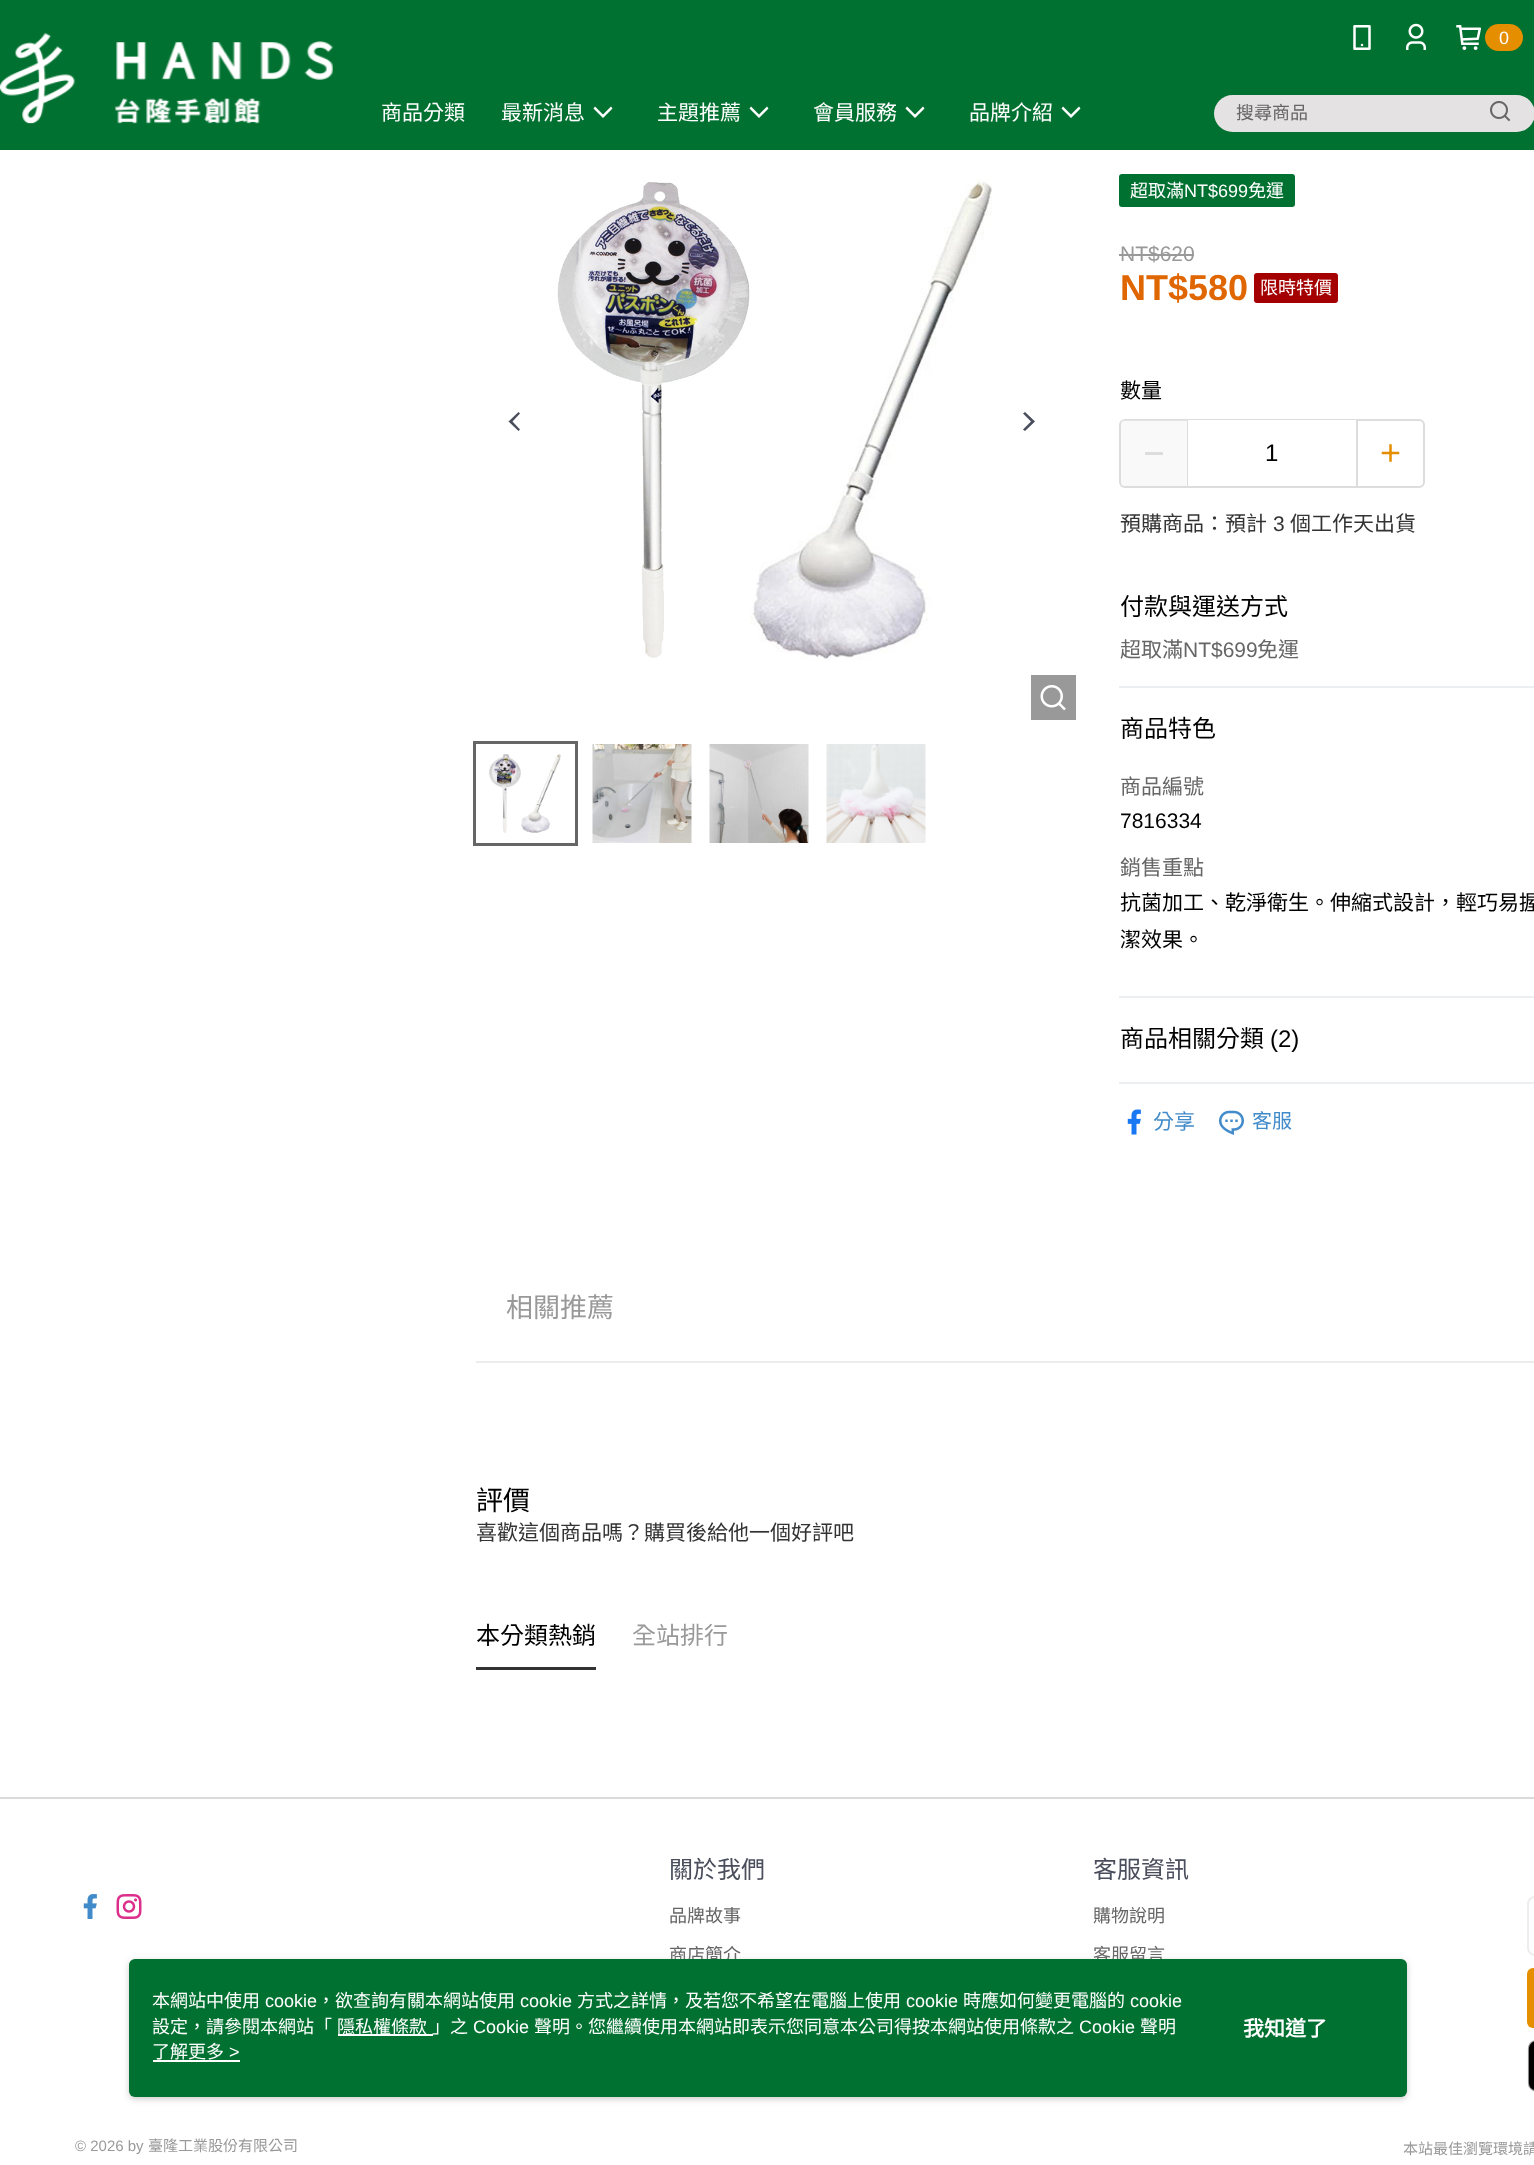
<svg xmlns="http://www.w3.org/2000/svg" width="1534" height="2165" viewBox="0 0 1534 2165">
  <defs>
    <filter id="blur1" x="-50%" y="-200%" width="200%" height="500%"><feGaussianBlur stdDeviation="3"/></filter>
  </defs>
  <rect width="100%" height="100%" fill="#ffffff"/>
  <rect x="0" y="0" width="1534" height="150" fill="#007130"/>
  <image x="0" y="33" width="333" height="91" href="img1.png"/>
  <image x="1353" y="25" width="18" height="25" href="img2.png"/>
  <image x="1406" y="23" width="20" height="27" href="img3.png"/>
  <image x="1456" y="25" width="25" height="25" href="img4.png"/>
  <rect x="1485" y="24" width="38" height="27" rx="13.5" fill="#e48e00"/>
  <text x="1499" y="44" font-family="Liberation Sans" font-size="18" fill="#ffffff">0</text>
  <text x="381" y="120" font-family="Noto Sans CJK TC" font-size="21" fill="#ffffff">商品分類</text>
  <text x="501" y="120" font-family="Noto Sans CJK TC" font-size="21" fill="#ffffff">最新消息</text>
  <path d="M595 106.5L593.5 108.5L603 118L612.5 108.5L611 106.5L603 114.5Z" fill="#ffffff"/>
  <text x="657" y="120" font-family="Noto Sans CJK TC" font-size="21" fill="#ffffff">主題推薦</text>
  <path d="M751 106.5L749.5 108.5L759 118L768.5 108.5L767 106.5L759 114.5Z" fill="#ffffff"/>
  <text x="813" y="120" font-family="Noto Sans CJK TC" font-size="21" fill="#ffffff">會員服務</text>
  <path d="M907 106.5L905.5 108.5L915 118L924.5 108.5L923 106.5L915 114.5Z" fill="#ffffff"/>
  <text x="969" y="120" font-family="Noto Sans CJK TC" font-size="21" fill="#ffffff">品牌介紹</text>
  <path d="M1063 106.5L1061.5 108.5L1071 118L1080.5 108.5L1079 106.5L1071 114.5Z" fill="#ffffff"/>
  <rect x="1214" y="95" width="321" height="37" rx="18.5" fill="#e4e2e2"/>
  <text x="1236" y="119" font-family="Noto Sans CJK TC" font-size="18" fill="#666666">搜尋商品</text>
  <image x="1490" y="101" width="21" height="21" href="img5.png"/>
  <path d="M520 413.5L518.5 412L508.5 421.5L518.5 431L520 429.5L512.5 421.5Z" fill="#4a4e5c"/>
  <image x="557" y="178" width="435" height="483" href="img6.png"/>
  <rect x="1031" y="675" width="45" height="45" fill="#999999"/>
  <image x="1040" y="685" width="26" height="26" href="img7.png"/>
  <path d="M1023 429.5L1025 431L1035 421.5L1025 412L1023 413.5L1031 421.5Z" fill="#4a4e5c"/>
  <image x="489" y="754" width="72" height="79" href="img8.png"/>
  <rect x="474.5" y="742.5" width="102" height="102" fill="none" stroke="#666666" stroke-width="3"/>
  <image x="592" y="744" width="100" height="99" href="img9.png"/>
  <image x="709" y="744" width="100" height="99" href="img10.png"/>
  <image x="826" y="744" width="100" height="99" href="img11.png"/>
  <rect x="1120" y="175" width="174" height="31" rx="2" fill="#007130" stroke="#007130" stroke-width="2"/>
  <text x="1130" y="197" font-family="Noto Sans CJK TC" font-size="18" fill="#ffffff">超取滿</text>
  <text x="1184" y="197" font-family="Liberation Sans" font-size="18" fill="#ffffff">NT$699</text>
  <text x="1248" y="197" font-family="Noto Sans CJK TC" font-size="18" fill="#ffffff">免運</text>
  <text x="1120" y="261" font-family="Liberation Sans" font-size="21" fill="#999999">NT$620</text>
  <rect x="1119" y="254" width="75" height="2" fill="#999999"/>
  <text x="1120" y="300" font-family="Liberation Sans" font-size="36" font-weight="bold" fill="#df6600">NT$580</text>
  <rect x="1254" y="273" width="84" height="30" rx="3" fill="#a40000"/>
  <text x="1260" y="294" font-family="Noto Sans CJK TC" font-size="18" fill="#ffffff">限時特價</text>
  <text x="1120" y="398" font-family="Noto Sans CJK TC" font-size="21" fill="#000000">數量</text>
  <rect x="1120" y="420" width="304" height="67" rx="5" fill="none" stroke="#dddddd" stroke-width="2"/>
  <rect x="1121" y="420" width="66" height="66" fill="#f1f1f1" fill-opacity="0.4"/>
  <rect x="1145" y="452" width="18" height="3" fill="#dddddd"/>
  <rect x="1356" y="420" width="2" height="66" fill="#dddddd"/>
  <rect x="1187" y="420" width="1" height="66" fill="#dddddd"/>
  <rect x="1188" y="420" width="168" height="1" fill="#ffffff"/>
  <text x="1265" y="461" font-family="Liberation Sans" font-size="24" fill="#000000">1</text>
  <image x="1381" y="444" width="19" height="18" href="img12.png"/>
  <text x="1120" y="531" font-family="Noto Sans CJK TC" font-size="21" fill="#333333">預購商品：預計</text>
  <text x="1273" y="531" font-family="Liberation Sans" font-size="21" fill="#333333">3</text>
  <text x="1290" y="531" font-family="Noto Sans CJK TC" font-size="21" fill="#333333">個工作天出貨</text>
  <rect x="1119" y="686" width="415" height="2" fill="#eceff1"/>
  <text x="1120" y="615" font-family="Noto Sans CJK TC" font-size="24" fill="#000000">付款與運送方式</text>
  <text x="1120" y="657" font-family="Noto Sans CJK TC" font-size="21" fill="#666666">超取滿</text>
  <text x="1183" y="657" font-family="Liberation Sans" font-size="21" fill="#666666">NT$699</text>
  <text x="1257" y="657" font-family="Noto Sans CJK TC" font-size="21" fill="#666666">免運</text>
  <rect x="1119" y="996" width="415" height="2" fill="#eceff1"/>
  <text x="1120" y="737" font-family="Noto Sans CJK TC" font-size="24" fill="#000000">商品特色</text>
  <text x="1120" y="794" font-family="Noto Sans CJK TC" font-size="21" fill="#666666">商品編號</text>
  <text x="1120" y="828" font-family="Liberation Sans" font-size="21" fill="#000000">7816334</text>
  <text x="1120" y="875" font-family="Noto Sans CJK TC" font-size="21" fill="#666666">銷售重點</text>
  <text x="1120" y="910" font-family="Noto Sans CJK TC" font-size="21" fill="#000000">抗菌加工、乾淨衛生。伸縮式設計，輕巧易握</text>
  <text x="1120" y="947" font-family="Noto Sans CJK TC" font-size="21" fill="#000000">潔效果。</text>
  <rect x="1119" y="1082" width="415" height="2" fill="#eceff1"/>
  <text x="1120" y="1047" font-family="Noto Sans CJK TC" font-size="24" fill="#000000">商品相關分類</text>
  <text x="1270" y="1047" font-family="Liberation Sans" font-size="24" fill="#000000">(2)</text>
  <image x="1127" y="1109" width="14" height="26" href="img13.png"/>
  <text x="1153" y="1129" font-family="Noto Sans CJK TC" font-size="21" fill="#428bca">分享</text>
  <image x="1219" y="1110" width="25" height="25" href="img14.png"/>
  <text x="1252" y="1128" font-family="Noto Sans CJK TC" font-size="20" fill="#428bca">客服</text>
  <rect x="476" y="1361" width="1058" height="2" fill="#ececec"/>
  <text x="506" y="1317" font-family="Noto Sans CJK TC" font-size="27" fill="#999999">相關推薦</text>
  <text x="476" y="1510" font-family="Noto Sans CJK TC" font-size="27" fill="#000000">評價</text>
  <text x="476" y="1540" font-family="Noto Sans CJK TC" font-size="21" fill="#333333">喜歡這個商品嗎？購買後給他一個好評吧</text>
  <rect x="476" y="1667" width="120" height="3" fill="#333333"/>
  <text x="476" y="1644" font-family="Noto Sans CJK TC" font-size="24" fill="#000000">本分類熱銷</text>
  <text x="632" y="1644" font-family="Noto Sans CJK TC" font-size="24" fill="#999999">全站排行</text>
  <rect x="0" y="1797" width="1534" height="2" fill="#dadada"/>
  <image x="83" y="1894" width="14" height="25" href="img15.png"/>
  <image x="116" y="1894" width="26" height="25" href="img16.png"/>
  <text x="669" y="1878" font-family="Noto Sans CJK TC" font-size="24" fill="#4a4e5c">關於我們</text>
  <text x="669" y="1922" font-family="Noto Sans CJK TC" font-size="18" fill="#666666">品牌故事</text>
  <text x="669" y="1961" font-family="Noto Sans CJK TC" font-size="18" fill="#666666">商店簡介</text>
  <text x="1093" y="1878" font-family="Noto Sans CJK TC" font-size="24" fill="#4a4e5c">客服資訊</text>
  <text x="1093" y="1922" font-family="Noto Sans CJK TC" font-size="18" fill="#666666">購物說明</text>
  <text x="1093" y="1961" font-family="Noto Sans CJK TC" font-size="18" fill="#666666">客服留言</text>
  <rect x="1528" y="1897" width="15" height="58" rx="7" fill="none" stroke="#ededed" stroke-width="2"/>
  <rect x="1527" y="1968" width="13" height="60" rx="6" fill="#e48e00"/>
  <image x="1527" y="2040" width="7" height="52" href="img17.png"/>
  <text x="75" y="2151" font-family="Liberation Sans" font-size="15" fill="#999999">© 2026 by</text>
  <text x="148" y="2151" font-family="Noto Sans CJK TC" font-size="15" fill="#999999">臺隆工業股份有限公司</text>
  <text x="1403" y="2154" font-family="Noto Sans CJK TC" font-size="15" fill="#999999">本站最佳瀏覽環境請</text>
  <rect x="129" y="1961" width="1278" height="138" rx="6" fill="#979797" fill-opacity="0.5" filter="url(#blur1)"/>
  <rect x="129" y="1959" width="1278" height="138" rx="6" fill="#007130"/>
  <text x="152" y="2007" font-family="Noto Sans CJK TC" font-size="18" fill="#ffffff">本網站中使用</text>
  <text x="265" y="2007" font-family="Liberation Sans" font-size="18" fill="#ffffff">cookie</text>
  <text x="317" y="2007" font-family="Noto Sans CJK TC" font-size="18" fill="#ffffff">，欲查詢有關本網站使用</text>
  <text x="520" y="2007" font-family="Liberation Sans" font-size="18" fill="#ffffff">cookie</text>
  <text x="577" y="2007" font-family="Noto Sans CJK TC" font-size="18" fill="#ffffff">方式之詳情，及若您不希望在電腦上使用</text>
  <text x="906" y="2007" font-family="Liberation Sans" font-size="18" fill="#ffffff">cookie</text>
  <text x="963" y="2007" font-family="Noto Sans CJK TC" font-size="18" fill="#ffffff">時應如何變更電腦的</text>
  <text x="1130" y="2007" font-family="Liberation Sans" font-size="18" fill="#ffffff">cookie</text>
  <text x="152" y="2033" font-family="Noto Sans CJK TC" font-size="18" fill="#ffffff">設定，請參閱本網站「</text>
  <rect x="338" y="2034" width="95" height="2" fill="#ffffff"/>
  <text x="337" y="2033" font-family="Noto Sans CJK TC" font-size="18" fill="#ffffff">隱私權條款</text>
  <text x="432" y="2033" font-family="Noto Sans CJK TC" font-size="18" fill="#ffffff">」之</text>
  <text x="473" y="2033" font-family="Liberation Sans" font-size="18" fill="#ffffff">Cookie</text>
  <text x="534" y="2033" font-family="Noto Sans CJK TC" font-size="18" fill="#ffffff">聲明。您繼續使用本網站即表示您同意本公司得按本網站使用條款之</text>
  <text x="1079" y="2033" font-family="Liberation Sans" font-size="18" fill="#ffffff">Cookie</text>
  <text x="1140" y="2033" font-family="Noto Sans CJK TC" font-size="18" fill="#ffffff">聲明</text>
  <text x="152" y="2058" font-family="Noto Sans CJK TC" font-size="18" fill="#ffffff">了解更多</text>
  <text x="229" y="2058" font-family="Liberation Sans" font-size="18" fill="#ffffff">&gt;</text>
  <rect x="153" y="2060" width="87" height="2" fill="#ffffff"/>
  <text x="1243" y="2036" font-family="Noto Sans CJK TC" font-size="21" font-weight="bold" fill="#ffffff">我知道了</text>
</svg>
